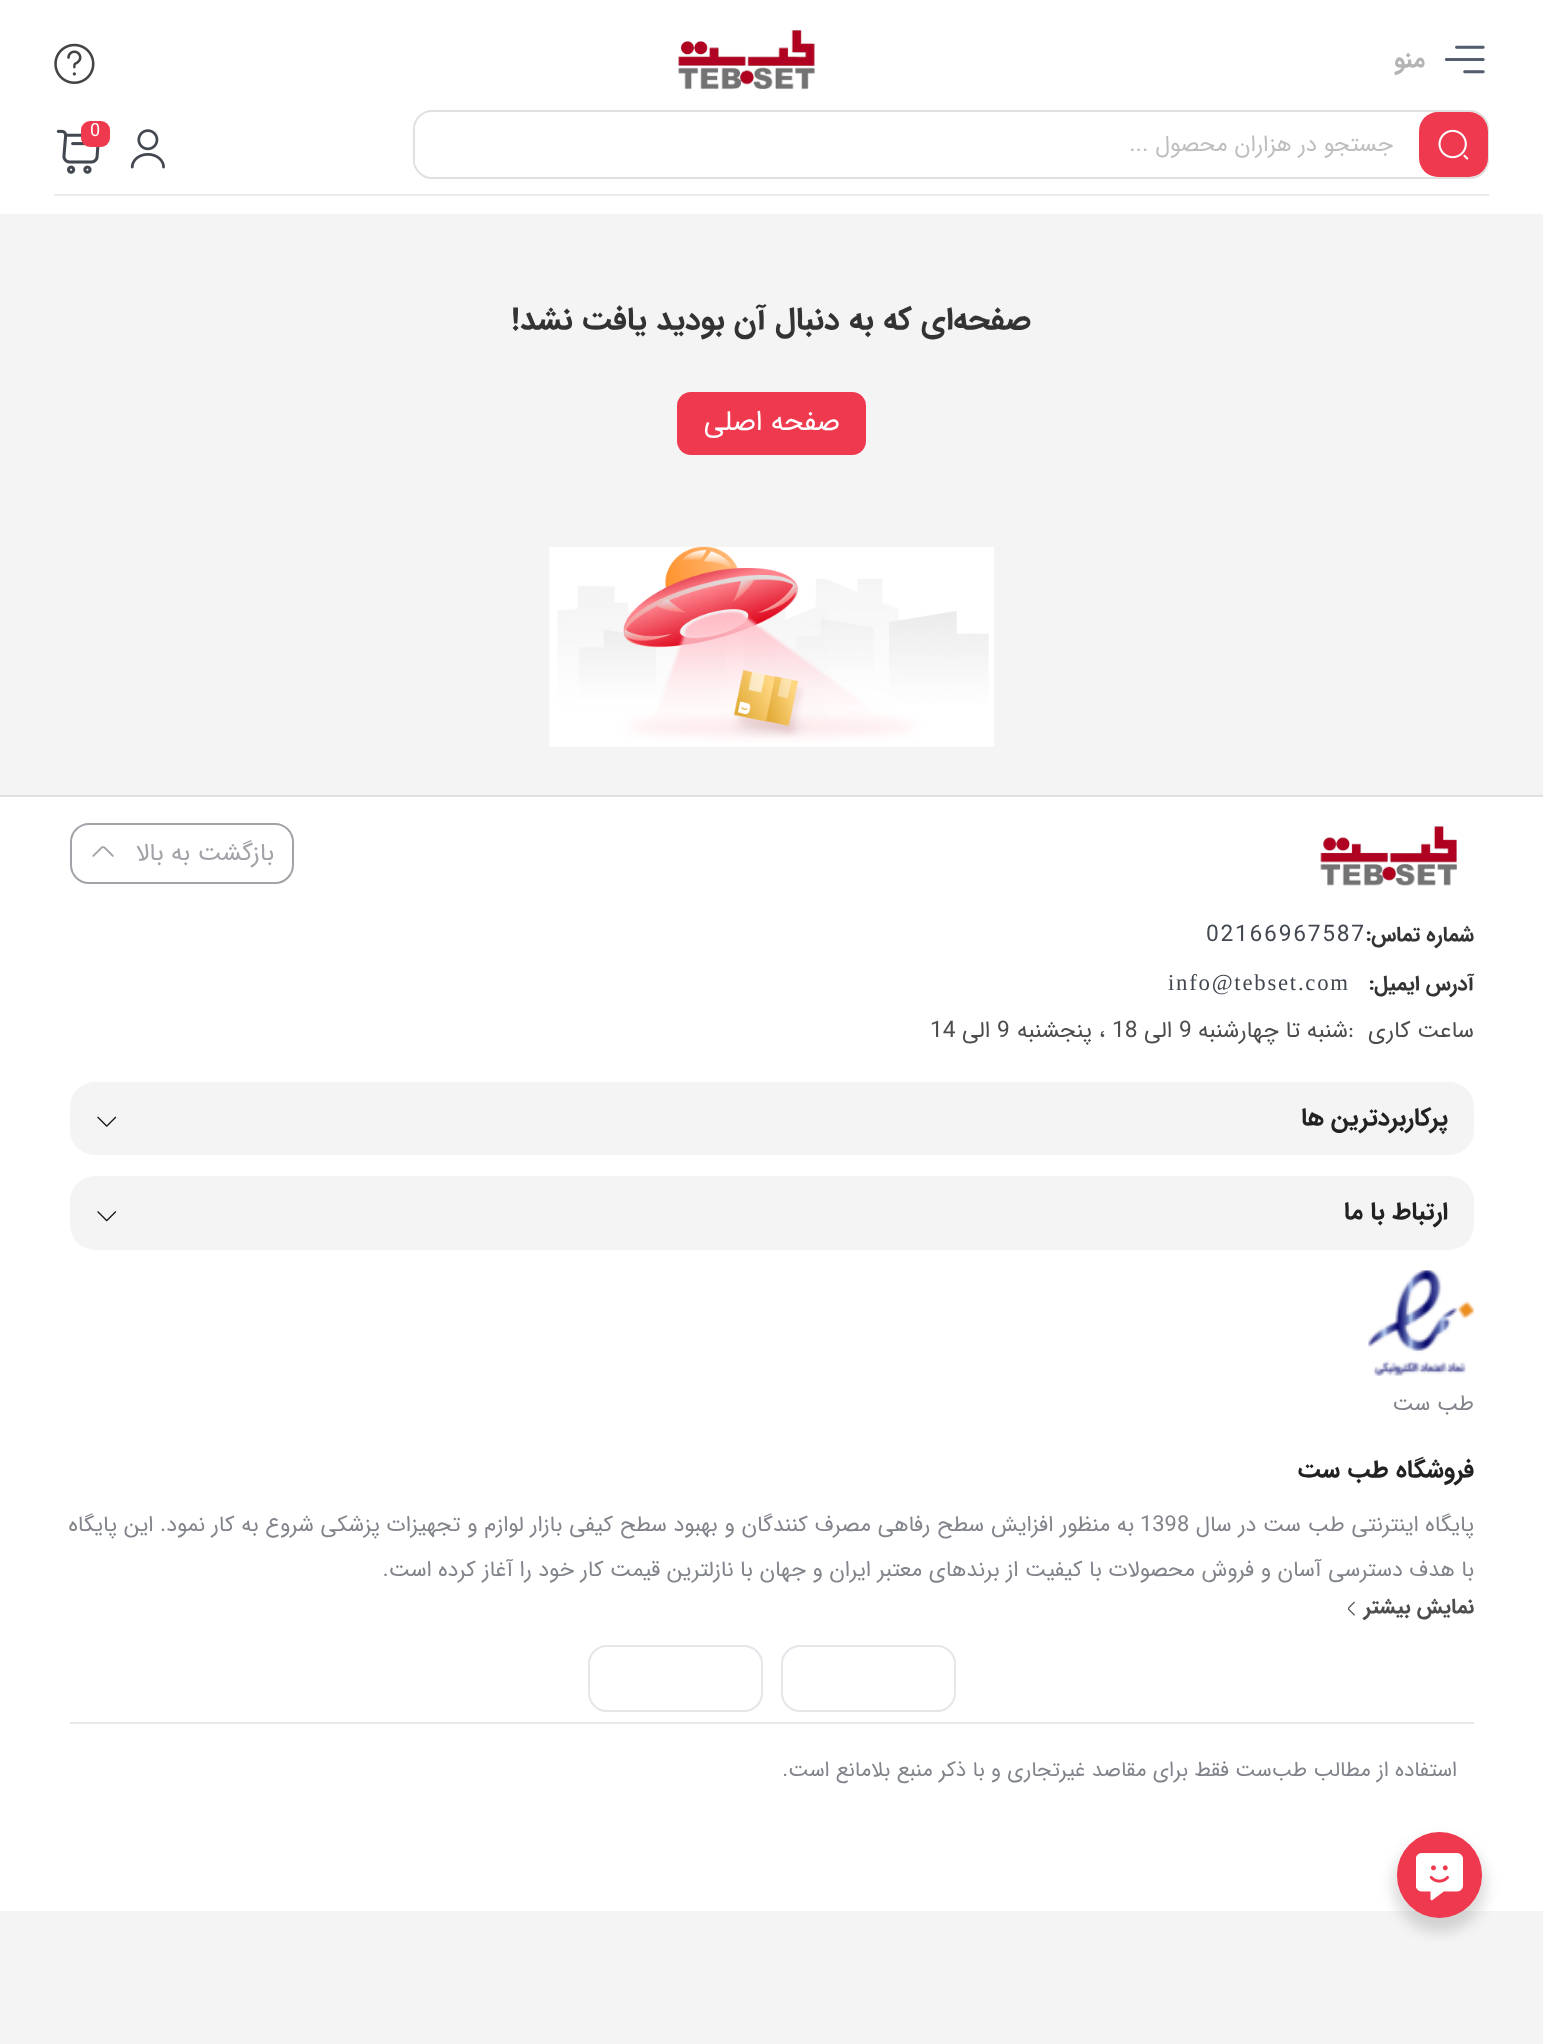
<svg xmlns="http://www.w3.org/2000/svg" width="1543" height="2044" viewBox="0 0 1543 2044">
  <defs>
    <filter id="blur1" x="-50%" y="-200%" width="200%" height="500%"><feGaussianBlur stdDeviation="7"/></filter>
  </defs>
  <rect width="100%" height="100%" fill="#f4f4f4"/>
  <rect x="0" y="0" width="1543" height="214" fill="#ffffff"/>
  <image x="1444" y="45" width="41" height="29" href="img1.png"/>
  <text x="1425" y="67" font-family="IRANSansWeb" font-size="24.5" font-weight="bold" direction="rtl" fill="#b4b4b4">منو</text>
  <image x="678" y="30" width="137" height="60" href="img2.png"/>
  <image x="54" y="43" width="41" height="41" href="img3.png"/>
  <rect x="54" y="194" width="1435" height="2" fill="#ebebef"/>
  <image x="130" y="129" width="35" height="40" href="img4.png"/>
  <image x="56" y="129" width="44" height="45" href="img5.png"/>
  <rect x="81" y="121" width="29" height="26" rx="9" fill="#ef394e"/>
  <text x="90" y="136" font-family="IRANSansWeb" font-size="18" fill="#ffffff">0</text>
  <rect x="414" y="111" width="1074" height="67" rx="18" fill="none" stroke="#e0e0e0" stroke-width="2"/>
  <rect x="1419" y="112" width="69" height="65" rx="19" fill="#ef394e"/>
  <image x="1438" y="129" width="31" height="31" href="img6.png"/>
  <rect x="415" y="126" width="1" height="39" fill="#ffffff"/>
  <text x="1393" y="151" font-family="IRANSansWeb" font-size="22.75" direction="rtl" fill="#bebebe">جستجو در هزاران محصول ...</text>
  <text x="1031" y="329" font-family="IRANSansWeb" font-size="31.5" font-weight="bold" direction="rtl" fill="#333333">صفحه‌ای که به دنبال آن بودید یافت نشد!</text>
  <rect x="677" y="392" width="189" height="63" rx="14" fill="#ef394e"/>
  <text x="840" y="430" font-family="IRANSansWeb" font-size="28" direction="rtl" fill="#ffffff">صفحه اصلی</text>
  <image x="549" y="546" width="445" height="201" href="img7.png"/>
  <rect x="0" y="797" width="1543" height="1114" fill="#ffffff"/>
  <rect x="0" y="795" width="1543" height="2" fill="#e0e0e2"/>
  <image x="1320" y="826" width="137" height="60" href="img8.png"/>
  <rect x="71" y="824" width="222" height="59" rx="18" fill="none" stroke="#a1a3a8" stroke-width="2"/>
  <text x="274" y="860" font-family="IRANSansWeb" font-size="24.5" direction="rtl" fill="#a1a3a8">بازگشت به بالا</text>
  <image x="92" y="846" width="22" height="11" href="img9.png"/>
  <text x="1474" y="941" font-family="IRANSansWeb" font-size="21" font-weight="bold" direction="rtl" fill="#333333">شماره تماس:</text>
  <text x="1206" y="941" font-family="IRANSansWeb" font-size="22.75" letter-spacing="1.75" fill="#424750">02166967587</text>
  <text x="1474" y="990" font-family="IRANSansWeb" font-size="21" font-weight="bold" direction="rtl" fill="#333333">آدرس ایمیل:</text>
  <text x="1168" y="990" font-family="Liberation Serif" font-size="22.75" letter-spacing="1.75" fill="#424750">info@tebset.com</text>
  <text x="1474" y="1037" font-family="IRANSansWeb" font-size="22.75" direction="rtl" fill="#4d4d4d">ساعت کاری</text>
  <text x="1348" y="1037" font-family="IRANSansWeb" font-size="22.75" fill="#4d4d4d">:</text>
  <text x="1348" y="1037" font-family="IRANSansWeb" font-size="22.75" direction="rtl" fill="#4d4d4d">شنبه تا چهارشنبه</text>
  <text x="1179" y="1037" font-family="IRANSansWeb" font-size="22.75" fill="#4d4d4d">9</text>
  <text x="1172" y="1037" font-family="IRANSansWeb" font-size="22.75" direction="rtl" fill="#4d4d4d">الی</text>
  <text x="1112" y="1037" font-family="IRANSansWeb" font-size="22.75" fill="#4d4d4d">18</text>
  <text x="1105" y="1037" font-family="IRANSansWeb" font-size="22.75" direction="rtl" fill="#4d4d4d">، پنجشنبه</text>
  <text x="997" y="1037" font-family="IRANSansWeb" font-size="22.75" fill="#4d4d4d">9</text>
  <text x="990" y="1037" font-family="IRANSansWeb" font-size="22.75" direction="rtl" fill="#4d4d4d">الی</text>
  <text x="930" y="1037" font-family="IRANSansWeb" font-size="22.75" fill="#4d4d4d">14</text>
  <rect x="70" y="1082" width="1404" height="73" rx="25" fill="#f4f4f4"/>
  <text x="1448" y="1125" font-family="IRANSansWeb" font-size="24.5" font-weight="bold" direction="rtl" fill="#222222">پرکاربردترین ها</text>
  <image x="97" y="1116" width="20" height="11" href="img10.png"/>
  <rect x="70" y="1176" width="1404" height="74" rx="25" fill="#f4f4f4"/>
  <text x="1448" y="1219" font-family="IRANSansWeb" font-size="24.5" font-weight="bold" direction="rtl" fill="#222222">ارتباط با ما</text>
  <image x="97" y="1211" width="20" height="11" href="img11.png"/>
  <image x="1368" y="1270" width="106" height="106" href="img12.png"/>
  <text x="1474" y="1410" font-family="IRANSansWeb" font-size="21.9" direction="rtl" fill="#81858b">طب ست</text>
  <text x="1474" y="1477" font-family="IRANSansWeb" font-size="24.5" font-weight="bold" direction="rtl" fill="#222222">فروشگاه طب ست</text>
  <text x="1474" y="1531" word-spacing="0.2" font-family="IRANSansWeb" font-size="21.9" direction="rtl" fill="#81858b">پایگاه اینترنتی طب ست در سال</text>
  <text x="1140" y="1531" font-family="IRANSansWeb" font-size="21.9" fill="#81858b">1398</text>
  <text x="1134" y="1531" word-spacing="0.2" font-family="IRANSansWeb" font-size="21.9" direction="rtl" fill="#81858b">به منظور افزایش سطح رفاهی مصرف کنندگان و بهبود سطح کیفی بازار لوازم و تجهیزات پزشکی شروع به کار نمود. این پایگاه</text>
  <text x="1474" y="1576" font-family="IRANSansWeb" font-size="21.9" direction="rtl" fill="#81858b">با هدف دسترسی آسان و فروش محصولات با کیفیت از برندهای معتبر ایران و جهان با نازلترین قیمت کار خود را آغاز کرده است.</text>
  <text x="1474" y="1613" font-family="IRANSansWeb" font-size="21" font-weight="bold" direction="rtl" fill="#4d4d4d">نمایش بیشتر</text>
  <image x="1348" y="1601" width="7" height="15" href="img13.png"/>
  <rect x="782" y="1646" width="173" height="65" rx="18" fill="none" stroke="#e5e5ea" stroke-width="2"/>
  <rect x="589" y="1646" width="173" height="65" rx="18" fill="none" stroke="#e5e5ea" stroke-width="2"/>
  <rect x="70" y="1722" width="1404" height="2" fill="#e8e8e8"/>
  <text x="1457" y="1776" font-family="IRANSansWeb" font-size="21" direction="rtl" fill="#81858b">استفاده از مطالب طب‌ست فقط برای مقاصد غیرتجاری و با ذکر منبع بلامانع است.</text>
  <rect x="1393" y="1839" width="93" height="93" rx="46.5" fill="#000000" fill-opacity="0.14" filter="url(#blur1)"/>
  <rect x="1397" y="1832" width="85" height="86" rx="42.5" fill="#ef394e"/>
  <image x="1416" y="1853" width="47" height="48" href="img14.png"/>
</svg>
